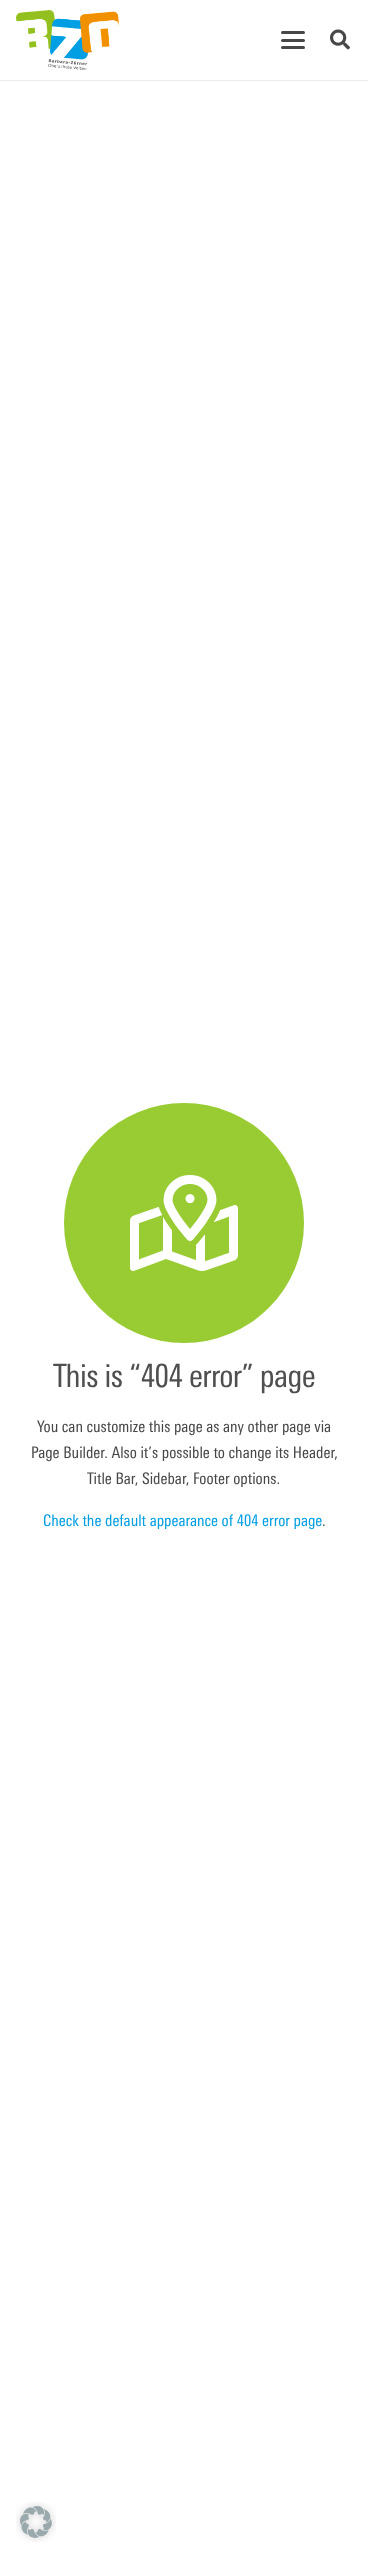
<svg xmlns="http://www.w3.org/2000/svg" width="368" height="2558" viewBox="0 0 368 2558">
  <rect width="100%" height="100%" fill="#ffffff"/>
  <rect x="0" y="80" width="368" height="1" fill="#ebebeb"/>
  <image x="16" y="10" width="103" height="60" href="img1.png"/>
  <rect x="281" y="39" width="24" height="3" rx="1.5" fill="#474747"/>
  <rect x="281" y="31" width="24" height="3" rx="1.5" fill="#474747"/>
  <rect x="281" y="46" width="24" height="3" rx="1.5" fill="#474747"/>
  <image x="330" y="29" width="20" height="21" href="img2.png"/>
  <circle cx="184" cy="1223" r="120" fill="#99cc33"/>
  <image x="130" y="1175" width="108" height="96" href="img3.png"/>
  <text x="53" y="1387" font-family="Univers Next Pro" font-size="32" letter-spacing="-0.6" fill="#4f4f4f">This is “404 error” page</text>
  <text x="37" y="1432" font-family="Univers Next Pro" font-size="16" fill="#474747">You can customize this page as any other page via</text>
  <text x="31" y="1458" font-family="Univers Next Pro" font-size="16" fill="#474747">Page Builder. Also it’s possible to change its Header,</text>
  <text x="87" y="1484" font-family="Univers Next Pro" font-size="16" fill="#474747">Title Bar, Sidebar, Footer options.</text>
  <text x="43" y="1526" font-family="Univers Next Pro" font-size="16" fill="#009ee3">Check the default appearance of 404 error page</text>
  <text x="322" y="1526" font-family="Univers Next Pro" font-size="16" fill="#474747">.</text>
  <image x="16" y="2502" width="40" height="40" href="img4.png"/>
</svg>
